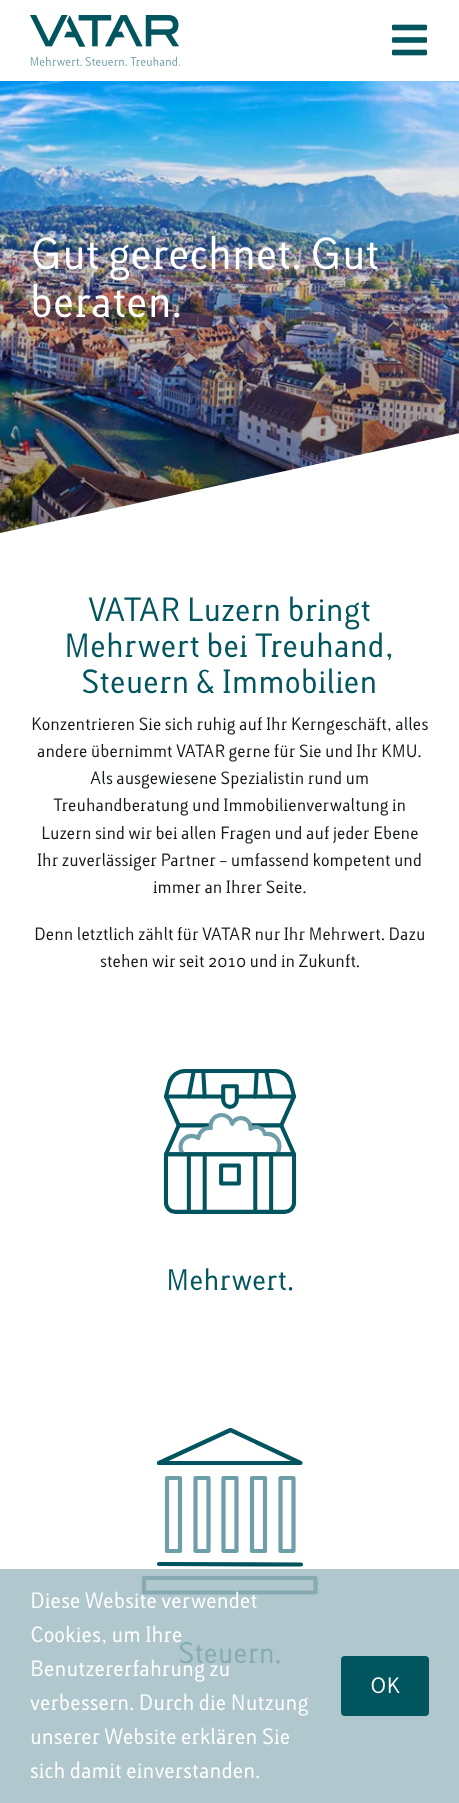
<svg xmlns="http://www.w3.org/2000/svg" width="459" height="1803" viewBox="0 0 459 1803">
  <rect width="100%" height="100%" fill="#ffffff"/>
  <rect x="0" y="1569" width="459" height="234" fill="#afc7cd"/>
  <image x="30" y="15" width="150" height="51" href="img1.png"/>
  <image x="392" y="24" width="35" height="32" href="img2.png"/>
  <image x="0" y="81" width="459" height="452" href="img3.png"/>
  <text x="30" y="269" font-family="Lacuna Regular" font-size="40.25" fill="#ffffff">Gut gerechnet. Gut</text>
  <text x="30" y="317" font-family="Lacuna Regular" font-size="40.25" fill="#ffffff">beraten.</text>
  <path d="M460 433L0 533H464Z" fill="#ffffff"/>
  <text x="88" y="621" font-family="Lacuna Regular" font-size="30" fill="#00555e">VATAR Luzern bringt</text>
  <text x="64" y="657" font-family="Lacuna Regular" font-size="30" fill="#00555e">Mehrwert bei Treuhand,</text>
  <text x="81" y="693" font-family="Lacuna Regular" font-size="30" fill="#00555e">Steuern &amp; Immobilien</text>
  <text x="31" y="730" font-family="Lacuna Regular" font-size="16" fill="#141a19">Konzentrieren Sie sich ruhig auf Ihr Kerngeschäft, alles</text>
  <text x="37" y="757" font-family="Lacuna Regular" font-size="16" fill="#141a19">andere übernimmt VATAR gerne für Sie und Ihr KMU.</text>
  <text x="90" y="784" font-family="Lacuna Regular" font-size="16" fill="#141a19">Als ausgewiesene Spezialistin rund um</text>
  <text x="53" y="811" font-family="Lacuna Regular" font-size="16" fill="#141a19">Treuhandberatung und Immobilienverwaltung in</text>
  <text x="41" y="839" font-family="Lacuna Regular" font-size="16" fill="#141a19">Luzern sind wir bei allen Fragen und auf jeder Ebene</text>
  <text x="37" y="866" font-family="Lacuna Regular" font-size="16" fill="#141a19">Ihr zuverlässiger Partner – umfassend kompetent und</text>
  <text x="153" y="893" font-family="Lacuna Regular" font-size="16" fill="#141a19">immer an Ihrer Seite.</text>
  <text x="34" y="940" font-family="Lacuna Regular" font-size="16" fill="#141a19">Denn letztlich zählt für VATAR nur Ihr Mehrwert. Dazu</text>
  <text x="100" y="967" font-family="Lacuna Regular" font-size="16" fill="#141a19">stehen wir seit 2010 und in Zukunft.</text>
  <image x="163" y="1069" width="134" height="145" href="img4.png"/>
  <text x="166" y="1290" font-family="Lacuna Regular" font-size="26.75" fill="#00555e">Mehrwert.</text>
  <path d="M315.5 1578H144V1592.5H315.5Z" fill="none" stroke="#86abb3" stroke-width="4.2" stroke-linecap="round" stroke-linejoin="round"/>
  <path d="M180 1478H167V1551H180ZM293.5 1478H280.5V1551H293.5ZM265 1478H252V1551H265ZM208.5 1478H195.5V1551H208.5ZM236.5 1478H223.5V1551H236.5Z" fill="none" stroke="#6e9ea8" stroke-width="4.2" stroke-linecap="round" stroke-linejoin="round"/>
  <path d="M159 1564L301 1564.5" fill="none" stroke="#00545e" stroke-width="4.2" stroke-linecap="round" stroke-linejoin="round"/>
  <path d="M230.5 1430L159 1463H300.5Z" fill="none" stroke="#00545e" stroke-width="4.2" stroke-linecap="round" stroke-linejoin="round"/>
  <text x="178" y="1663" font-family="Lacuna Regular" font-size="26.75" fill="#86acb3">Steuern.</text>
  <text x="30" y="1608" font-family="Lacuna Regular" font-size="20" fill="#ffffff">Diese Website verwendet</text>
  <text x="30" y="1642" font-family="Lacuna Regular" font-size="20" fill="#ffffff">Cookies, um Ihre</text>
  <text x="30" y="1676" font-family="Lacuna Regular" font-size="20" fill="#ffffff">Benutzererfahrung zu</text>
  <text x="30" y="1710" font-family="Lacuna Regular" font-size="20" fill="#ffffff">verbessern. Durch die Nutzung</text>
  <text x="30" y="1744" font-family="Lacuna Regular" font-size="20" fill="#ffffff">unserer Website erklären Sie</text>
  <text x="30" y="1778" font-family="Lacuna Regular" font-size="20" fill="#ffffff">sich damit einverstanden.</text>
  <rect x="341" y="1656" width="88" height="60" rx="4" fill="#00555e"/>
  <text x="370" y="1693" font-family="Lacuna Regular" font-size="20" fill="#ffffff">OK</text>
</svg>
